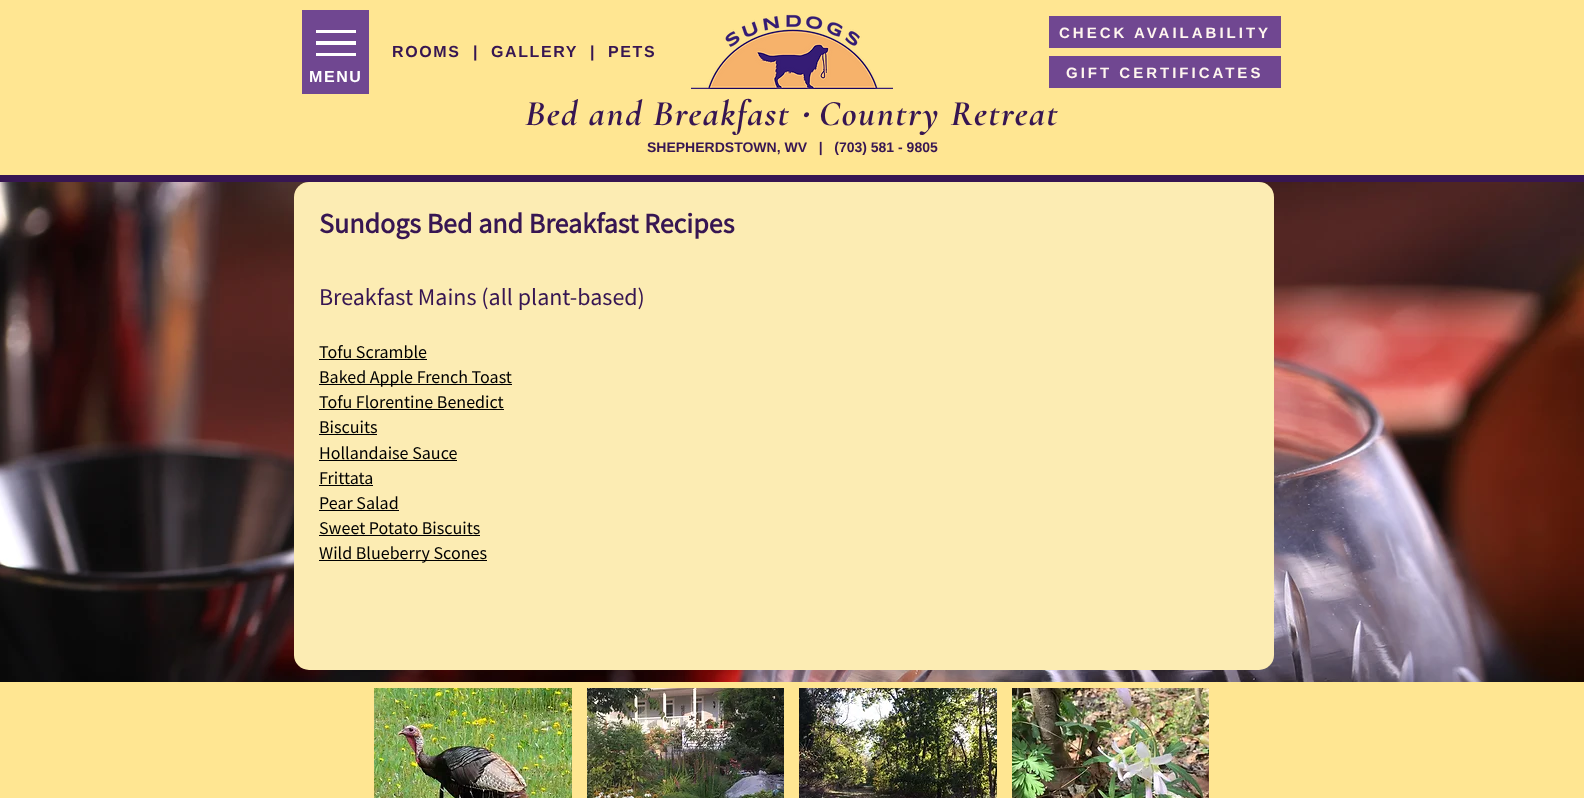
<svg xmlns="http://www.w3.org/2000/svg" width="1584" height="798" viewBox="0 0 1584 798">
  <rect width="100%" height="100%" fill="#ffffff"/>
  <rect x="0" y="175" width="1584" height="7" fill="#371652"/>
  <rect x="0" y="0" width="1584" height="175" fill="#ffe692"/>
  <text x="392" y="57" font-family="Liberation Sans" font-size="16" font-weight="bold" letter-spacing="1.6" fill="#371652">ROOMS</text>
  <text x="473" y="57" font-family="Liberation Sans" font-size="16" font-weight="bold" letter-spacing="1.6" fill="#371652">|</text>
  <text x="491" y="57" font-family="Liberation Sans" font-size="16" font-weight="bold" letter-spacing="1.6" fill="#371652">GALLERY</text>
  <text x="590" y="57" font-family="Liberation Sans" font-size="16" font-weight="bold" letter-spacing="1.6" fill="#371652">|</text>
  <text x="608" y="57" font-family="Liberation Sans" font-size="16" font-weight="bold" letter-spacing="1.6" fill="#371652">PETS</text>
  <image x="691" y="14" width="202" height="75" href="img1.png"/>
  <rect x="1049" y="16" width="232" height="32" fill="#704791"/>
  <text x="1059" y="38" font-family="Liberation Sans" font-size="15" font-weight="bold" letter-spacing="3" fill="#fff6ef">CHECK AVAILABILITY</text>
  <rect x="1049" y="56" width="232" height="32" fill="#704791"/>
  <text x="1066" y="78" font-family="Liberation Sans" font-size="15" font-weight="bold" letter-spacing="3" fill="#fff6ef">GIFT CERTIFICATES</text>
  <rect x="302" y="10" width="67" height="84" fill="#704791"/>
  <rect x="316" y="53" width="40" height="3" fill="#ffffff"/>
  <rect x="316" y="30" width="40" height="3" fill="#ffffff"/>
  <rect x="316" y="41" width="40" height="4" fill="#ffffff"/>
  <text x="309" y="82" font-family="Liberation Sans" font-size="16" font-weight="bold" letter-spacing="1.6" fill="#ffffff">MENU</text>
  <text x="525" y="125" font-family="Cormorant Garamond" font-size="36" font-weight="bold" font-style="italic" letter-spacing="1.6" fill="#371652">Bed and Breakfast</text>
  <text x="800" y="125" font-family="FreeSans" font-size="28" font-weight="bold" font-style="italic" letter-spacing="1.6" fill="#371652">𐤟</text>
  <text x="819" y="125" font-family="Cormorant Garamond" font-size="36" font-weight="bold" font-style="italic" letter-spacing="1.6" fill="#371652">Country Retreat</text>
  <text x="647" y="152" font-family="Liberation Sans" font-size="14" font-weight="bold" fill="#371652" xml:space="preserve">SHEPHERDSTOWN, WV   |   (703) 581 - 9805</text>
  <image x="0" y="182" width="1584" height="500" href="img6.png"/>
  <rect x="294" y="182" width="980" height="488" rx="15" fill="#fcecb3"/>
  <text x="319" y="233" font-family="Source Sans Pro" font-size="28" font-weight="bold" fill="#371652">Sundogs Bed and Breakfast Recipes</text>
  <text x="319" y="305" font-family="Source Sans Pro" font-size="24" fill="#371652">Breakfast Mains (all plant-based)</text>
  <text x="319" y="358" font-family="Source Sans Pro" font-size="18" fill="#000000">Tofu Scramble</text>
  <rect x="319" y="359" width="108" height="1" fill="#000000"/>
  <rect x="319" y="384" width="193" height="1" fill="#000000"/>
  <text x="319" y="383" font-family="Source Sans Pro" font-size="18" fill="#000000">Baked Apple French Toast</text>
  <text x="319" y="408" font-family="Source Sans Pro" font-size="18" fill="#000000">Tofu Florentine Benedict</text>
  <rect x="319" y="409" width="185" height="1" fill="#000000"/>
  <text x="319" y="433" font-family="Source Sans Pro" font-size="18" fill="#000000">Biscuits</text>
  <rect x="319" y="434" width="58" height="1" fill="#000000"/>
  <text x="319" y="459" font-family="Source Sans Pro" font-size="18" fill="#000000">Hollandaise Sauce</text>
  <rect x="319" y="460" width="138" height="1" fill="#000000"/>
  <text x="319" y="484" font-family="Source Sans Pro" font-size="18" fill="#000000">Frittata</text>
  <rect x="319" y="485" width="54" height="1" fill="#000000"/>
  <text x="319" y="509" font-family="Source Sans Pro" font-size="18" fill="#000000">Pear Salad</text>
  <rect x="319" y="510" width="80" height="1" fill="#000000"/>
  <text x="319" y="534" font-family="Source Sans Pro" font-size="18" fill="#000000">Sweet Potato Biscuits</text>
  <rect x="319" y="535" width="161" height="1" fill="#000000"/>
  <rect x="319" y="560" width="168" height="1" fill="#000000"/>
  <text x="319" y="559" font-family="Source Sans Pro" font-size="18" fill="#000000">Wild Blueberry Scones</text>
  <rect x="0" y="682" width="1584" height="116" fill="#ffe692"/>
  <image x="374" y="688" width="198" height="110" href="img2.png"/>
  <image x="587" y="688" width="197" height="110" href="img3.png"/>
  <image x="799" y="688" width="198" height="110" href="img4.png"/>
  <image x="1012" y="688" width="197" height="110" href="img5.png"/>
</svg>
